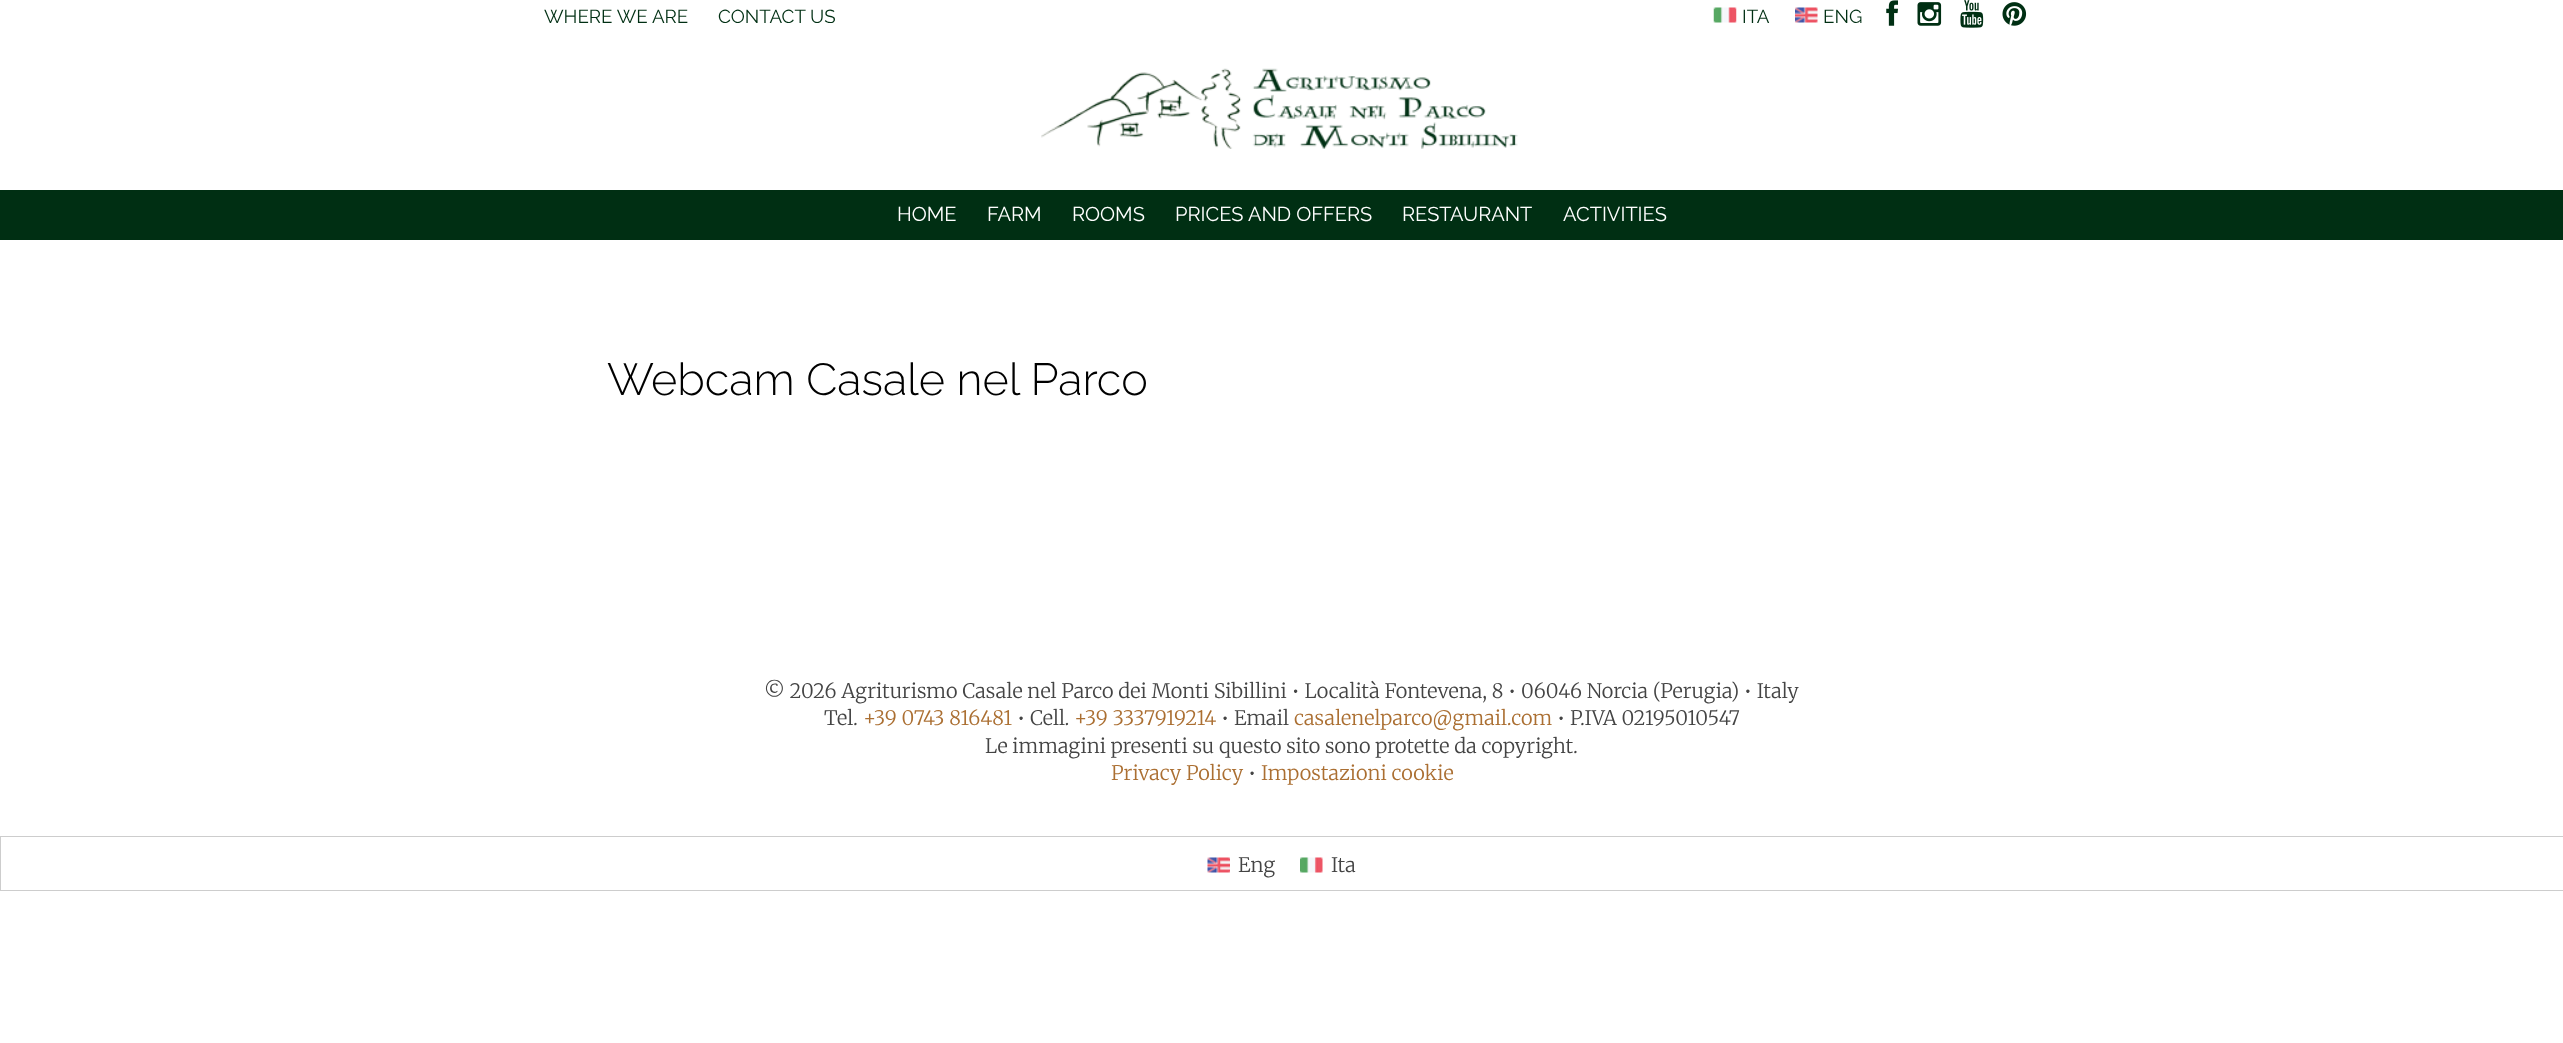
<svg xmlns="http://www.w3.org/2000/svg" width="2563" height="1043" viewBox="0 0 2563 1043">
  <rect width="100%" height="100%" fill="#ffffff"/>
  <text x="544" y="23" font-family="Raleway" font-size="18.75" fill="#002f13">WHERE WE ARE</text>
  <text x="718" y="23" font-family="Raleway" font-size="18.75" fill="#002f13">CONTACT US</text>
  <image x="1713" y="7" width="24" height="16" href="img1.png"/>
  <text x="1742" y="23" font-family="Raleway" font-size="18.75" fill="#002f13">ITA</text>
  <image x="1795" y="7" width="23" height="16" href="img2.png"/>
  <text x="1823" y="23" font-family="Raleway" font-size="18.75" fill="#002f13">ENG</text>
  <image x="1886" y="0" width="12" height="26" href="img3.png"/>
  <image x="1917" y="2" width="25" height="24" href="img4.png"/>
  <image x="1960" y="0" width="24" height="28" href="img5.png"/>
  <image x="2002" y="2" width="25" height="24" href="img6.png"/>
  <image x="1041" y="68" width="477" height="81" href="img7.png"/>
  <rect x="0" y="190" width="2563" height="50" fill="#002f13"/>
  <text x="897" y="221" font-family="Raleway" font-size="20" fill="#ffffff">HOME</text>
  <text x="987" y="221" font-family="Raleway" font-size="20" fill="#ffffff">FARM</text>
  <text x="1072" y="221" font-family="Raleway" font-size="20" fill="#ffffff">ROOMS</text>
  <text x="1175" y="221" font-family="Raleway" font-size="20" fill="#ffffff">PRICES AND OFFERS</text>
  <text x="1402" y="221" font-family="Raleway" font-size="20" fill="#ffffff">RESTAURANT</text>
  <text x="1563" y="221" font-family="Raleway" font-size="20" fill="#ffffff">ACTIVITIES</text>
  <text x="607" y="395" font-family="Raleway" font-size="45" font-weight="300" fill="#000000">Webcam Casale nel Parco</text>
  <text x="764" y="698" font-family="Merriweather" font-size="20" font-weight="300" fill="#444444">© 2026 Agriturismo Casale nel Parco dei Monti Sibillini • Località Fontevena, 8 • 06046 Norcia (Perugia) • Italy</text>
  <text x="824" y="725" font-family="Merriweather" font-size="20" font-weight="300" fill="#444444">Tel.</text>
  <text x="863" y="725" font-family="Merriweather" font-size="20" font-weight="300" fill="#ab6f32">+39 0743 816481</text>
  <text x="1017" y="725" font-family="Merriweather" font-size="20" font-weight="300" fill="#444444">• Cell.</text>
  <text x="1074" y="725" font-family="Merriweather" font-size="20" font-weight="300" fill="#ab6f32">+39 3337919214</text>
  <text x="1221" y="725" font-family="Merriweather" font-size="20" font-weight="300" fill="#444444">• Email</text>
  <text x="1294" y="725" font-family="Merriweather" font-size="20" font-weight="300" fill="#ab6f32">casalenelparco@gmail.com</text>
  <text x="1557" y="725" font-family="Merriweather" font-size="20" font-weight="300" fill="#444444">• P.IVA 02195010547</text>
  <text x="985" y="753" font-family="Merriweather" font-size="20" font-weight="300" fill="#444444">Le immagini presenti su questo sito sono protette da copyright.</text>
  <text x="1111" y="780" font-family="Merriweather" font-size="20" font-weight="300" fill="#ab6f32">Privacy Policy</text>
  <text x="1248" y="780" font-family="Merriweather" font-size="20" font-weight="300" fill="#444444">•</text>
  <text x="1261" y="780" font-family="Merriweather" font-size="20" font-weight="300" fill="#ab6f32">Impostazioni cookie</text>
  <rect x="0.5" y="836.5" width="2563" height="54" fill="none" stroke="#cdcdcd"/>
  <image x="1207" y="857" width="23" height="16" href="img8.png"/>
  <text x="1238" y="872" font-family="Merriweather" font-size="20" font-weight="300" fill="#444444">Eng</text>
  <image x="1300" y="857" width="23" height="16" href="img9.png"/>
  <text x="1331" y="872" font-family="Merriweather" font-size="20" font-weight="300" fill="#444444">Ita</text>
</svg>
